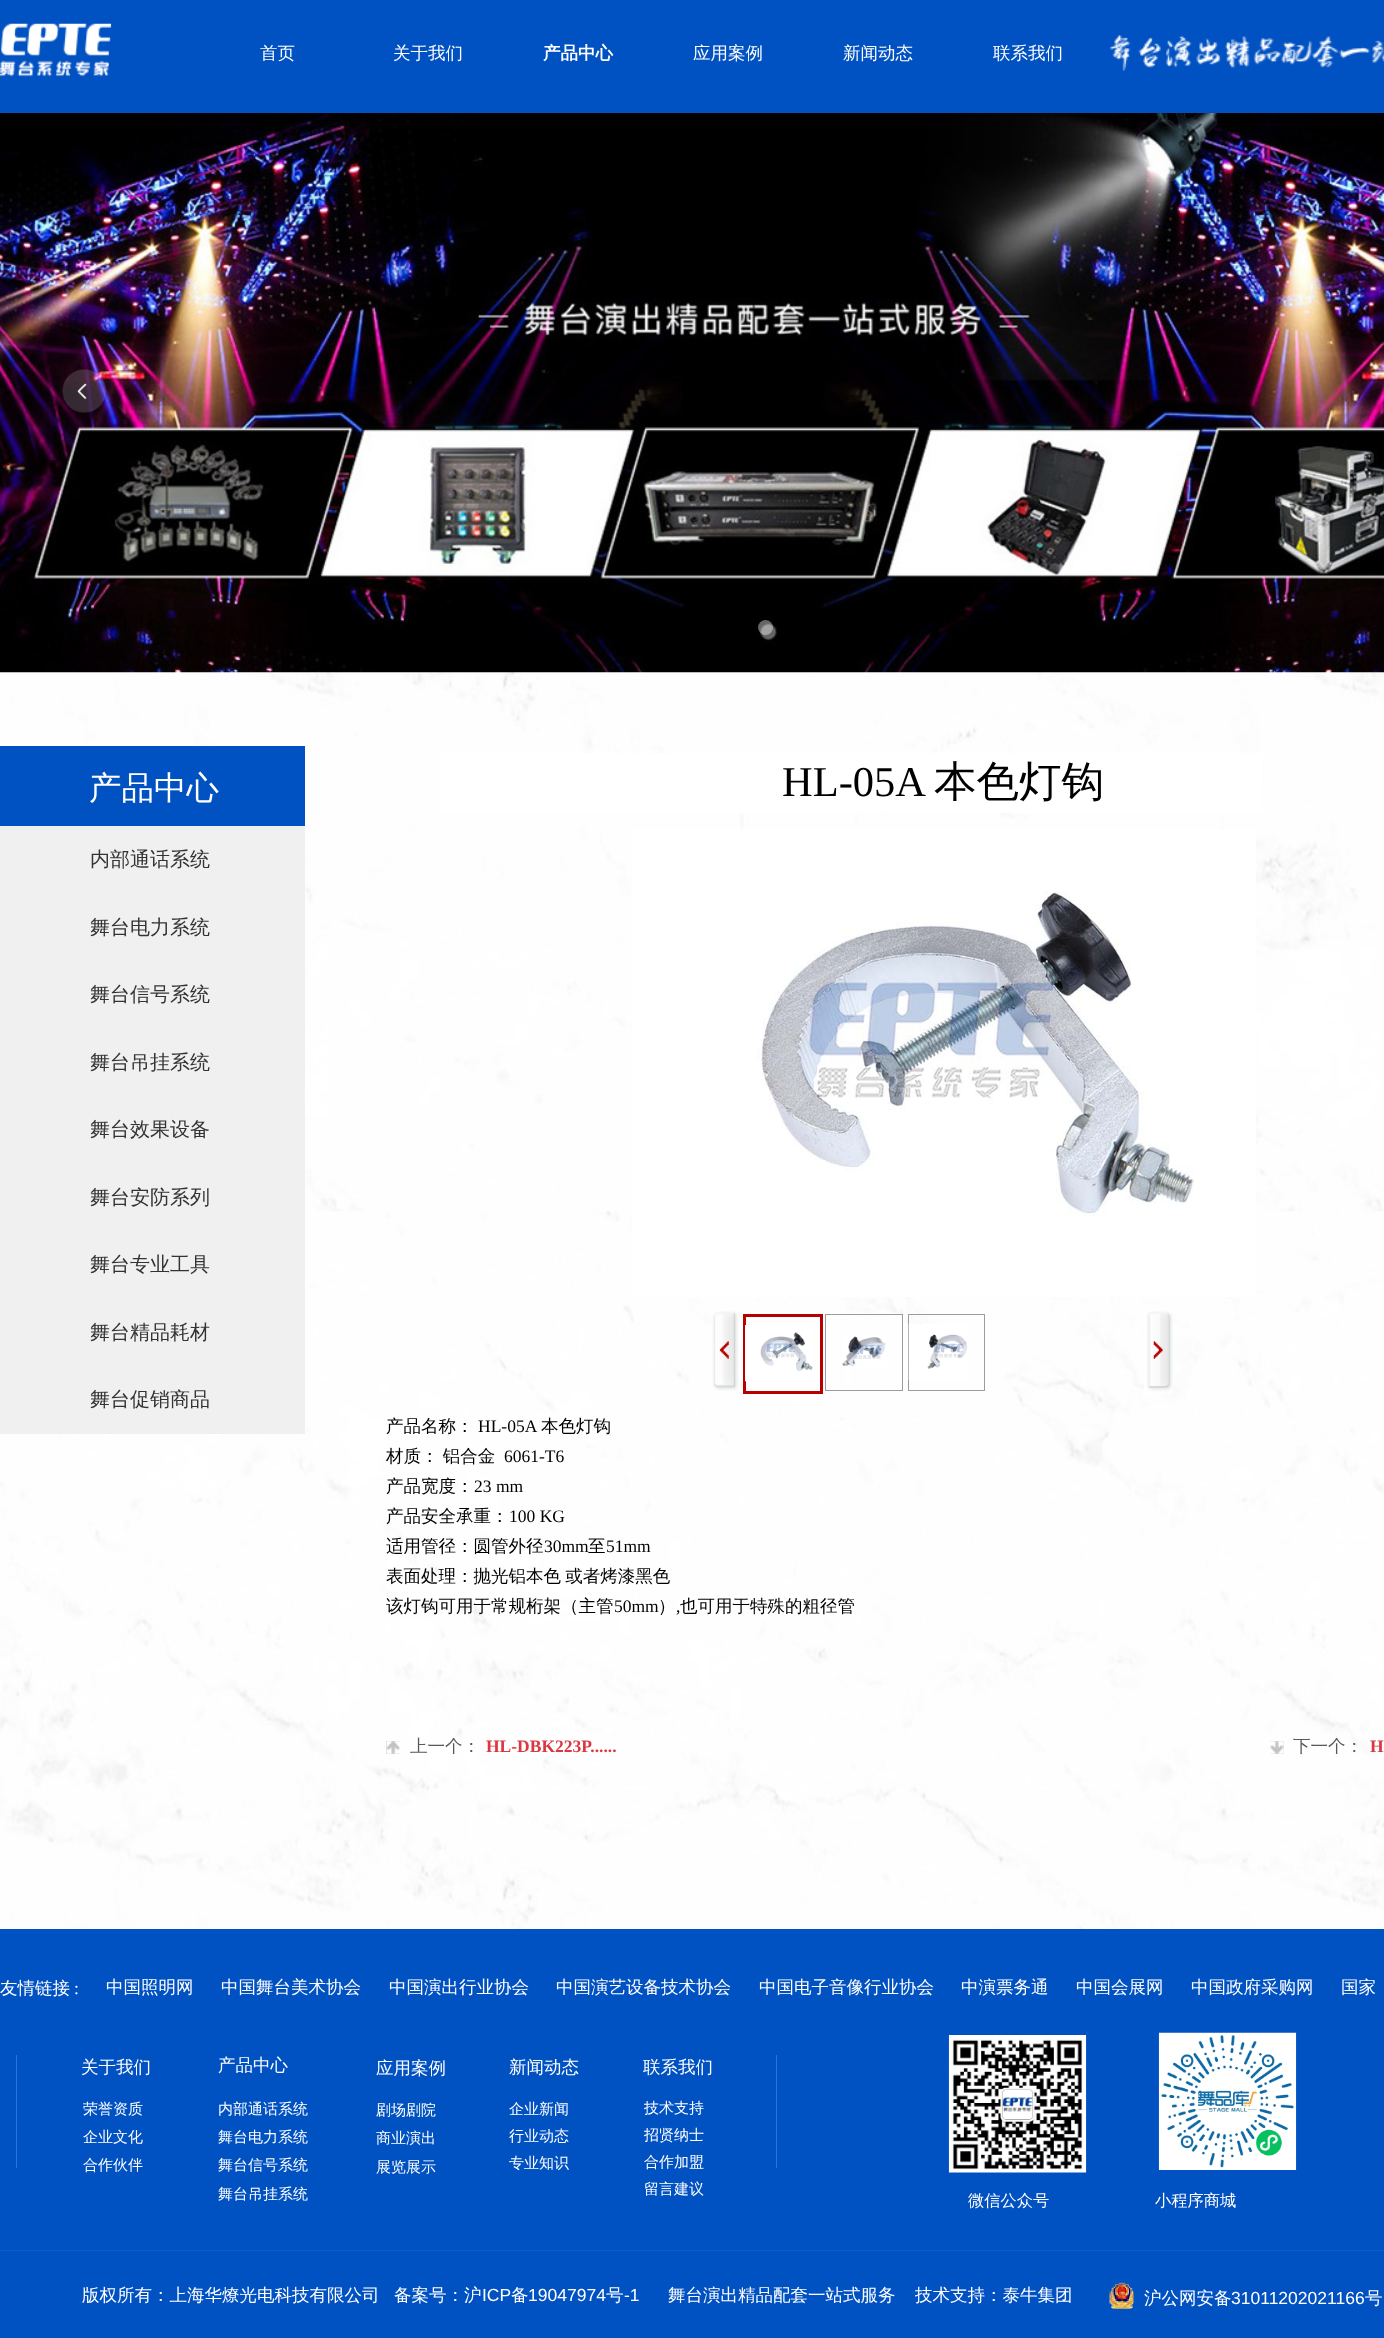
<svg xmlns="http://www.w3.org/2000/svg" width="1384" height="2338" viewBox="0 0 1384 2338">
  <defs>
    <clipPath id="clip1"><rect x="643" y="2055" width="88" height="28"/></clipPath>
  </defs>
  <rect width="100%" height="100%" fill="#ffffff"/>
  <rect x="0" y="0" width="1384" height="113" fill="#0051c2"/>
  <image x="0" y="23" width="112" height="54" href="img1.png"/>
  <text x="260" y="59" font-family="WenQuanYi Zen Hei" font-size="17.5" font-weight="500" fill="#ffffff">首页</text>
  <text x="393" y="59" font-family="WenQuanYi Zen Hei" font-size="17.5" font-weight="500" fill="#ffffff">关于我们</text>
  <text x="543" y="59" font-family="WenQuanYi Zen Hei" font-size="17.5" font-weight="bold" fill="#ffffff">产品中心</text>
  <text x="693" y="59" font-family="WenQuanYi Zen Hei" font-size="17.5" font-weight="500" fill="#ffffff">应用案例</text>
  <text x="843" y="59" font-family="WenQuanYi Zen Hei" font-size="17.5" font-weight="500" fill="#ffffff">新闻动态</text>
  <text x="993" y="59" font-family="WenQuanYi Zen Hei" font-size="17.5" font-weight="500" fill="#ffffff">联系我们</text>
  <image x="1110" y="35" width="274" height="36" href="img2.png"/>
  <image x="0" y="672" width="1384" height="1257" href="img3.png"/>
  <image x="0" y="113" width="1384" height="560" href="img4.png"/>
  <image x="62" y="369" width="44" height="44" href="img5.png"/>
  <circle cx="765.5" cy="627.5" r="7.5" fill="#ffffff" fill-opacity="0.4"/>
  <rect x="0" y="746" width="305" height="80" fill="#0051c2"/>
  <text x="89" y="799" font-family="WenQuanYi Zen Hei" font-size="32.5" font-weight="500" fill="#ffffff">产品中心</text>
  <rect x="440" y="753" width="822" height="60" fill="#ffffff"/>
  <text x="782" y="796" font-family="Liberation Serif" font-size="42.5" fill="#000000">HL-05A</text>
  <text x="934" y="796" font-family="WenQuanYi Zen Hei" font-size="42.5" font-weight="500" fill="#000000">本色灯钩</text>
  <image x="632" y="829" width="624" height="468" href="img6.png"/>
  <image x="712" y="1311" width="28" height="80" href="img7.png"/>
  <rect x="744.5" y="1315.5" width="77" height="77" fill="none" stroke="#b90000" stroke-width="3"/>
  <image x="745" y="1325" width="68" height="57" href="img8.png"/>
  <rect x="825.5" y="1314.5" width="77" height="76" fill="none" stroke="#9c9c9c"/>
  <image x="842" y="1336" width="44" height="31" href="img9.png"/>
  <rect x="908.5" y="1314.5" width="76" height="76" fill="none" stroke="#9c9c9c"/>
  <image x="908" y="1323" width="60" height="57" href="img10.png"/>
  <image x="1144" y="1311" width="29" height="82" href="img11.png"/>
  <text x="386" y="1432" font-family="WenQuanYi Zen Hei" font-size="17.5" font-weight="500" fill="#000000">产品名称：</text>
  <text x="478" y="1432" font-family="Liberation Serif" font-size="17.5" fill="#000000">HL-05A</text>
  <text x="541" y="1432" font-family="WenQuanYi Zen Hei" font-size="17.5" font-weight="500" fill="#000000">本色灯钩</text>
  <text x="386" y="1462" word-spacing="-1" font-family="WenQuanYi Zen Hei" font-size="17.5" font-weight="500" fill="#000000">材质： 铝合金</text>
  <text x="504" y="1462" font-family="Liberation Serif" font-size="17.5" fill="#000000">6061-T6</text>
  <text x="386" y="1492" font-family="WenQuanYi Zen Hei" font-size="17.5" font-weight="500" fill="#000000">产品宽度：</text>
  <text x="474" y="1492" font-family="Liberation Serif" font-size="17.5" fill="#000000">23 mm</text>
  <text x="386" y="1522" font-family="WenQuanYi Zen Hei" font-size="17.5" font-weight="500" fill="#000000">产品安全承重：</text>
  <text x="509" y="1522" font-family="Liberation Serif" font-size="17.5" fill="#000000">100 KG</text>
  <text x="386" y="1552" font-family="WenQuanYi Zen Hei" font-size="17.5" font-weight="500" fill="#000000">适用管径：圆管外径</text>
  <text x="544" y="1552" font-family="Liberation Serif" font-size="17.5" fill="#000000">30mm</text>
  <text x="588" y="1552" font-family="WenQuanYi Zen Hei" font-size="17.5" font-weight="500" fill="#000000">至</text>
  <text x="606" y="1552" font-family="Liberation Serif" font-size="17.5" fill="#000000">51mm</text>
  <text x="386" y="1582" word-spacing="-1" font-family="WenQuanYi Zen Hei" font-size="17.5" font-weight="500" fill="#000000">表面处理：抛光铝本色 或者烤漆黑色</text>
  <text x="386" y="1612" font-family="WenQuanYi Zen Hei" font-size="17.5" font-weight="500" fill="#000000">该灯钩可用于常规桁架（主管</text>
  <text x="614" y="1612" font-family="Liberation Serif" font-size="17.5" fill="#000000">50mm</text>
  <text x="658" y="1612" font-family="WenQuanYi Zen Hei" font-size="17.5" font-weight="500" fill="#000000">）</text>
  <text x="676" y="1612" font-family="Liberation Serif" font-size="17.5" fill="#000000">,</text>
  <text x="680" y="1612" font-family="WenQuanYi Zen Hei" font-size="17.5" font-weight="500" fill="#000000">也可用于特殊的粗径管</text>
  <rect x="386" y="1741" width="14" height="13" fill="#c2c2c2"/>
  <image x="386" y="1741" width="14" height="13" href="img12.png"/>
  <text x="410" y="1752" font-family="WenQuanYi Zen Hei" font-size="17.5" font-weight="500" fill="#595959">上一个：</text>
  <text x="486" y="1752" font-family="Liberation Serif" font-size="17.5" font-weight="bold" fill="#db3742">HL-DBK223P......</text>
  <rect x="1270" y="1741" width="14" height="13" fill="#c2c2c2"/>
  <image x="1270" y="1741" width="14" height="13" href="img13.png"/>
  <text x="1293" y="1752" font-family="WenQuanYi Zen Hei" font-size="17.5" font-weight="500" fill="#595959">下一个：</text>
  <text x="1370" y="1752" font-family="Liberation Serif" font-size="17.5" font-weight="bold" fill="#db3742">H</text>
  <rect x="0" y="826" width="305" height="608" fill="#f0f0f0"/>
  <text x="90" y="866" font-family="WenQuanYi Zen Hei" font-size="20" font-weight="500" fill="#333333">内部通话系统</text>
  <text x="90" y="934" font-family="WenQuanYi Zen Hei" font-size="20" font-weight="500" fill="#333333">舞台电力系统</text>
  <text x="90" y="1001" font-family="WenQuanYi Zen Hei" font-size="20" font-weight="500" fill="#333333">舞台信号系统</text>
  <text x="90" y="1069" font-family="WenQuanYi Zen Hei" font-size="20" font-weight="500" fill="#333333">舞台吊挂系统</text>
  <text x="90" y="1136" font-family="WenQuanYi Zen Hei" font-size="20" font-weight="500" fill="#333333">舞台效果设备</text>
  <text x="90" y="1204" font-family="WenQuanYi Zen Hei" font-size="20" font-weight="500" fill="#333333">舞台安防系列</text>
  <text x="90" y="1271" font-family="WenQuanYi Zen Hei" font-size="20" font-weight="500" fill="#333333">舞台专业工具</text>
  <text x="90" y="1339" font-family="WenQuanYi Zen Hei" font-size="20" font-weight="500" fill="#333333">舞台精品耗材</text>
  <text x="90" y="1406" font-family="WenQuanYi Zen Hei" font-size="20" font-weight="500" fill="#333333">舞台促销商品</text>
  <rect x="0" y="1929" width="1384" height="409" fill="#0051c2"/>
  <text x="0" y="1994" font-family="WenQuanYi Zen Hei" font-size="17.5" font-weight="500" fill="#ffffff">友情链接</text>
  <text x="74" y="1994" font-family="Liberation Serif" font-size="17.5" fill="#ffffff">:</text>
  <text x="106" y="1993" font-family="WenQuanYi Zen Hei" font-size="17.5" font-weight="500" fill="#ffffff">中国照明网</text>
  <text x="221" y="1993" font-family="WenQuanYi Zen Hei" font-size="17.5" font-weight="500" fill="#ffffff">中国舞台美术协会</text>
  <text x="389" y="1993" font-family="WenQuanYi Zen Hei" font-size="17.5" font-weight="500" fill="#ffffff">中国演出行业协会</text>
  <text x="556" y="1993" font-family="WenQuanYi Zen Hei" font-size="17.5" font-weight="500" fill="#ffffff">中国演艺设备技术协会</text>
  <text x="759" y="1993" font-family="WenQuanYi Zen Hei" font-size="17.5" font-weight="500" fill="#ffffff">中国电子音像行业协会</text>
  <text x="961" y="1993" font-family="WenQuanYi Zen Hei" font-size="17.5" font-weight="500" fill="#ffffff">中演票务通</text>
  <text x="1076" y="1993" font-family="WenQuanYi Zen Hei" font-size="17.5" font-weight="500" fill="#ffffff">中国会展网</text>
  <text x="1191" y="1993" font-family="WenQuanYi Zen Hei" font-size="17.5" font-weight="500" fill="#ffffff">中国政府采购网</text>
  <text x="1341" y="1993" font-family="WenQuanYi Zen Hei" font-size="17.5" font-weight="500" fill="#ffffff">国家</text>
  <rect x="16" y="2055" width="1" height="113" fill="#2675e3"/>
  <text x="81" y="2073" font-family="WenQuanYi Zen Hei" font-size="17.5" font-weight="500" fill="#ffffff">关于我们</text>
  <text x="218" y="2071" font-family="WenQuanYi Zen Hei" font-size="17.5" font-weight="500" fill="#ffffff">产品中心</text>
  <text x="376" y="2074" font-family="WenQuanYi Zen Hei" font-size="17.5" font-weight="500" fill="#ffffff">应用案例</text>
  <text x="509" y="2073" font-family="WenQuanYi Zen Hei" font-size="17.5" font-weight="500" fill="#ffffff">新闻动态</text>
  <g clip-path="url(#clip1)">
    <text x="643" y="2073" font-family="WenQuanYi Zen Hei" font-size="17.5" font-weight="500" fill="#ffffff">联系我们</text>
  </g>
  <rect x="776" y="2055" width="1" height="113" fill="#2675e3"/>
  <image x="948" y="2035" width="139" height="138" href="img14.png"/>
  <image x="1158" y="2032" width="139" height="138" href="img15.png"/>
  <text x="83" y="2114" font-family="WenQuanYi Zen Hei" font-size="15" font-weight="500" fill="#ffffff">荣誉资质</text>
  <text x="83" y="2142" font-family="WenQuanYi Zen Hei" font-size="15" font-weight="500" fill="#ffffff">企业文化</text>
  <text x="83" y="2170" font-family="WenQuanYi Zen Hei" font-size="15" font-weight="500" fill="#ffffff">合作伙伴</text>
  <text x="218" y="2114" font-family="WenQuanYi Zen Hei" font-size="15" font-weight="500" fill="#ffffff">内部通话系统</text>
  <text x="218" y="2142" font-family="WenQuanYi Zen Hei" font-size="15" font-weight="500" fill="#ffffff">舞台电力系统</text>
  <text x="218" y="2170" font-family="WenQuanYi Zen Hei" font-size="15" font-weight="500" fill="#ffffff">舞台信号系统</text>
  <text x="218" y="2199" font-family="WenQuanYi Zen Hei" font-size="15" font-weight="500" fill="#ffffff">舞台吊挂系统</text>
  <text x="376" y="2115" font-family="WenQuanYi Zen Hei" font-size="15" font-weight="500" fill="#ffffff">剧场剧院</text>
  <text x="376" y="2143" font-family="WenQuanYi Zen Hei" font-size="15" font-weight="500" fill="#ffffff">商业演出</text>
  <text x="376" y="2172" font-family="WenQuanYi Zen Hei" font-size="15" font-weight="500" fill="#ffffff">展览展示</text>
  <text x="509" y="2114" font-family="WenQuanYi Zen Hei" font-size="15" font-weight="500" fill="#ffffff">企业新闻</text>
  <text x="509" y="2141" font-family="WenQuanYi Zen Hei" font-size="15" font-weight="500" fill="#ffffff">行业动态</text>
  <text x="509" y="2168" font-family="WenQuanYi Zen Hei" font-size="15" font-weight="500" fill="#ffffff">专业知识</text>
  <text x="644" y="2113" font-family="WenQuanYi Zen Hei" font-size="15" font-weight="500" fill="#ffffff">技术支持</text>
  <text x="644" y="2140" font-family="WenQuanYi Zen Hei" font-size="15" font-weight="500" fill="#ffffff">招贤纳士</text>
  <text x="644" y="2167" font-family="WenQuanYi Zen Hei" font-size="15" font-weight="500" fill="#ffffff">合作加盟</text>
  <text x="644" y="2194" font-family="WenQuanYi Zen Hei" font-size="15" font-weight="500" fill="#ffffff">留言建议</text>
  <text x="968" y="2206" font-family="WenQuanYi Zen Hei" font-size="16.25" font-weight="500" fill="#ffffff">微信公众号</text>
  <text x="1155" y="2206" font-family="WenQuanYi Zen Hei" font-size="16.25" font-weight="500" fill="#ffffff">小程序商城</text>
  <rect x="0" y="2250" width="1384" height="1" fill="#085dd3"/>
  <text x="82" y="2301" font-family="WenQuanYi Zen Hei" font-size="17.5" font-weight="500" fill="#ffffff">版权所有：上海华燎光电科技有限公司</text>
  <text x="394" y="2301" font-family="WenQuanYi Zen Hei" font-size="17.5" font-weight="500" fill="#ffffff">备案号：沪</text>
  <text x="482" y="2301" font-family="Liberation Sans" font-size="17.5" fill="#ffffff">ICP</text>
  <text x="511" y="2301" font-family="WenQuanYi Zen Hei" font-size="17.5" font-weight="500" fill="#ffffff">备</text>
  <text x="528" y="2301" font-family="Liberation Sans" font-size="17.5" fill="#ffffff">19047974</text>
  <text x="606" y="2301" font-family="WenQuanYi Zen Hei" font-size="17.5" font-weight="500" fill="#ffffff">号</text>
  <text x="624" y="2301" font-family="Liberation Sans" font-size="17.5" fill="#ffffff">-1</text>
  <text x="668" y="2301" font-family="WenQuanYi Zen Hei" font-size="17.5" font-weight="500" fill="#ffffff">舞台演出精品配套一站式服务</text>
  <text x="915" y="2301" font-family="WenQuanYi Zen Hei" font-size="17.5" font-weight="500" fill="#ffffff">技术支持：泰牛集团</text>
  <image x="1109" y="2282" width="25" height="27" href="img16.png"/>
  <text x="1144" y="2304" font-family="WenQuanYi Zen Hei" font-size="17.5" font-weight="500" fill="#ffffff">沪公网安备</text>
  <text x="1231" y="2304" font-family="Liberation Sans" font-size="17.5" fill="#ffffff">31011202021166</text>
  <text x="1365" y="2304" font-family="WenQuanYi Zen Hei" font-size="17.5" font-weight="500" fill="#ffffff">号</text>
</svg>
